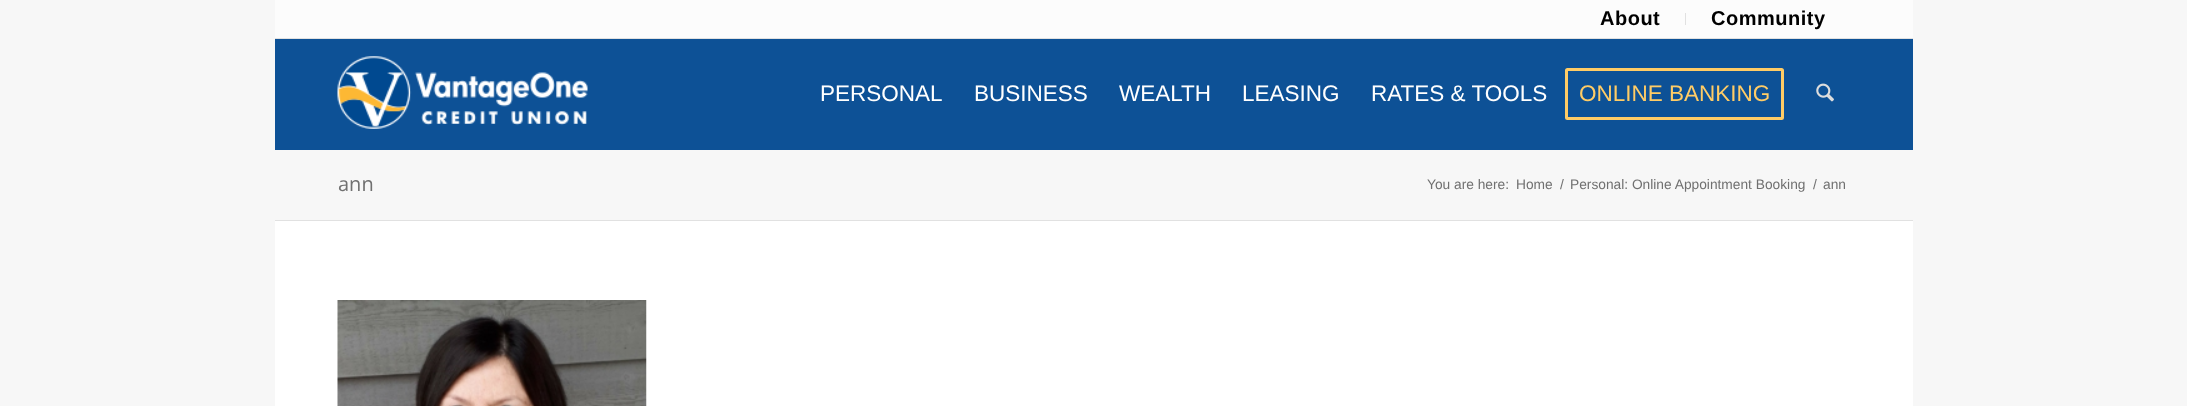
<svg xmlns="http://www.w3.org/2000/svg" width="2187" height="406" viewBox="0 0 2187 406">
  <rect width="100%" height="100%" fill="#f7f7f7"/>
  <rect x="275" y="0" width="1638" height="38" fill="#fcfcfc"/>
  <rect x="275" y="38" width="1638" height="1" fill="#e1e1e1"/>
  <rect x="1685" y="13" width="1" height="12" fill="#e1e1e1"/>
  <text x="1600" y="25" font-family="Liberation Sans" font-size="20" font-weight="bold" letter-spacing="0.5" fill="#000000">About</text>
  <text x="1711" y="25" font-family="Liberation Sans" font-size="20" font-weight="bold" letter-spacing="0.5" fill="#000000">Community</text>
  <rect x="275" y="39" width="1638" height="111" fill="#0d5196"/>
  <image x="337" y="56" width="251" height="73" href="img1.png"/>
  <text x="820" y="101" font-family="Liberation Sans" font-size="22.5" fill="#ffffff">PERSONAL</text>
  <text x="974" y="101" font-family="Liberation Sans" font-size="22.5" fill="#ffffff">BUSINESS</text>
  <text x="1119" y="101" font-family="Liberation Sans" font-size="22.5" fill="#ffffff">WEALTH</text>
  <text x="1242" y="101" font-family="Liberation Sans" font-size="22.5" fill="#ffffff">LEASING</text>
  <text x="1371" y="101" font-family="Liberation Sans" font-size="22.5" fill="#ffffff">RATES &amp; TOOLS</text>
  <rect x="1566.5" y="69.5" width="216" height="49" rx="1" fill="none" stroke="#ffcc66" stroke-width="3"/>
  <text x="1579" y="101" font-family="Liberation Sans" font-size="22.5" fill="#ffcc66">ONLINE BANKING</text>
  <image x="1816" y="83" width="18" height="19" href="img2.png"/>
  <rect x="275" y="221" width="1638" height="185" fill="#ffffff"/>
  <text x="338" y="191" font-family="Open Sans" font-size="20" fill="#707070">ann</text>
  <text x="1427" y="189" font-family="Liberation Sans" font-size="13.75" fill="#707070">You are here:</text>
  <text x="1516" y="189" font-family="Liberation Sans" font-size="13.75" fill="#707070">Home</text>
  <text x="1560" y="189" font-family="Liberation Sans" font-size="13.75" fill="#707070">/</text>
  <text x="1570" y="189" font-family="Liberation Sans" font-size="13.75" fill="#707070">Personal: Online Appointment Booking</text>
  <text x="1813" y="189" font-family="Liberation Sans" font-size="13.75" fill="#707070">/</text>
  <text x="1823" y="189" font-family="Liberation Sans" font-size="13.75" fill="#707070">ann</text>
  <rect x="275" y="220" width="1638" height="1" fill="#e1e1e1"/>
  <image x="337" y="300" width="310" height="106" href="img3.png"/>
</svg>
